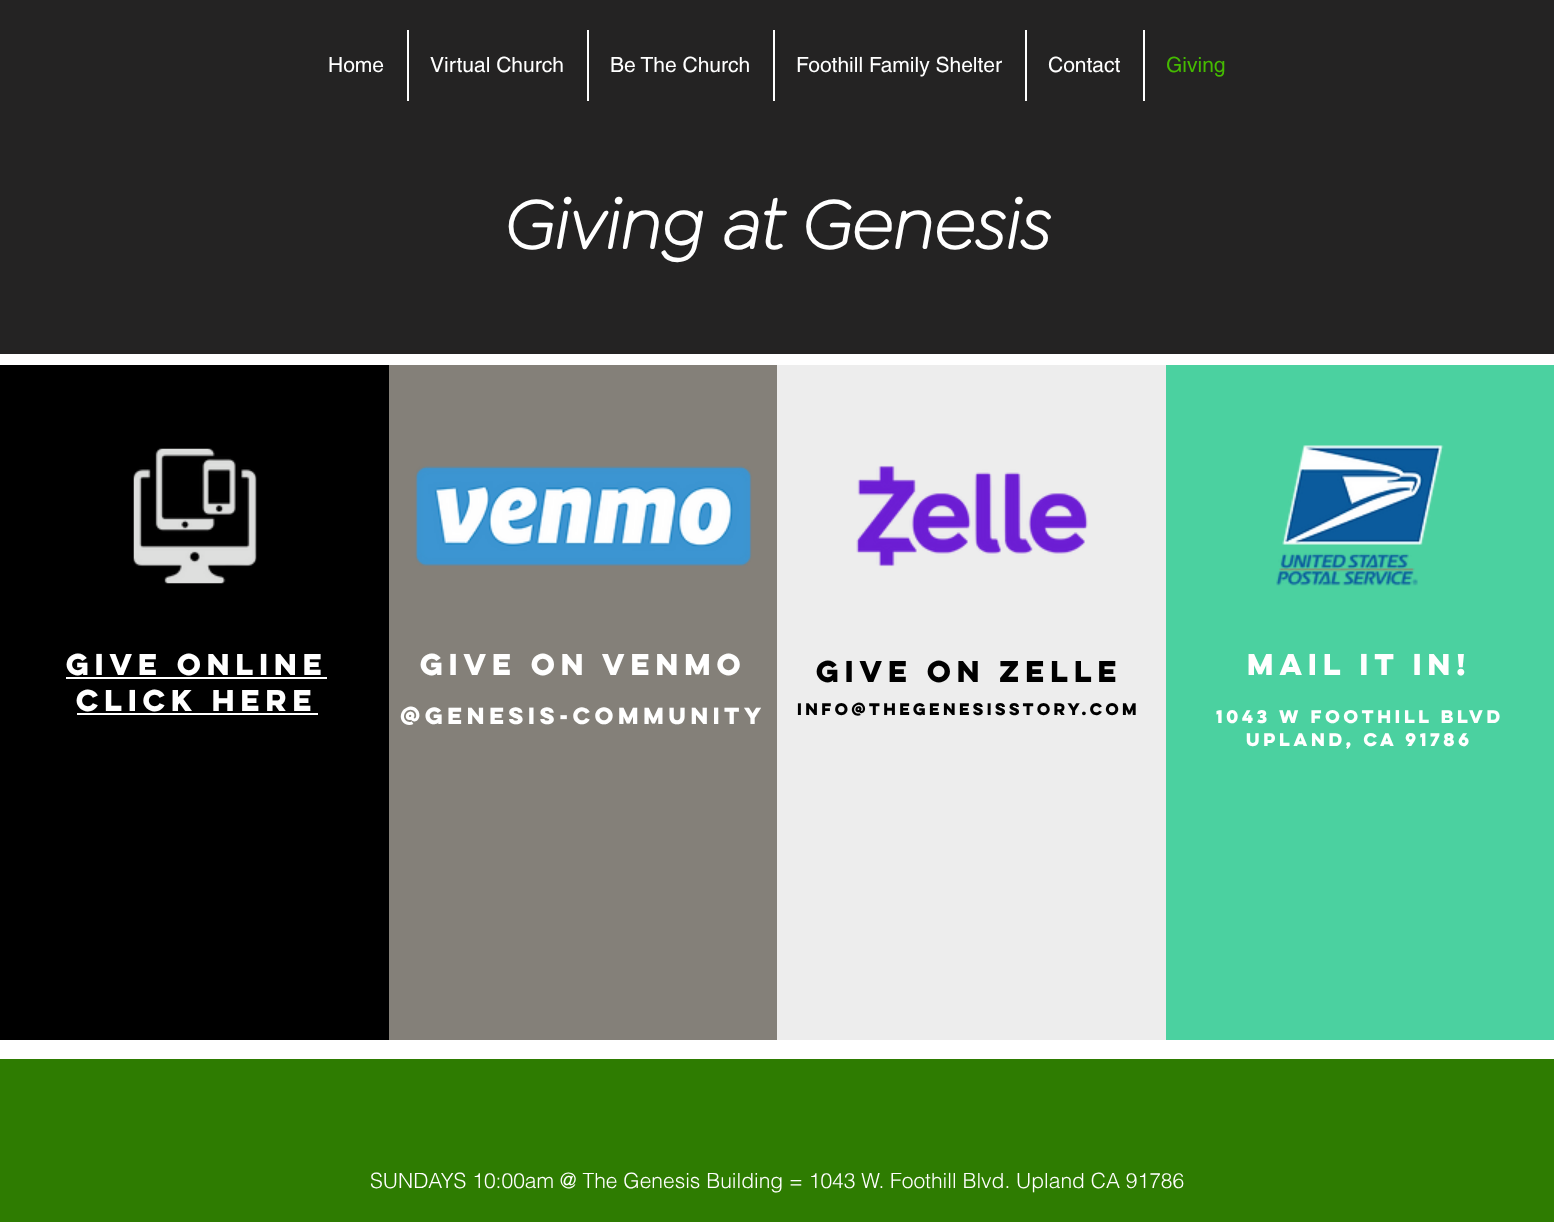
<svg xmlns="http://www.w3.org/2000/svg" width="1554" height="1222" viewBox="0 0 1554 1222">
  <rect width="100%" height="100%" fill="#ffffff"/>
  <rect x="0" y="0" width="1554" height="354" fill="#242323"/>
  <text x="328" y="72" font-family="helvetica" font-size="21" fill="#ffffff">Home</text>
  <rect x="407" y="30" width="2" height="71" fill="#ffffff"/>
  <text x="430" y="72" font-family="helvetica" font-size="21" fill="#ffffff">Virtual Church</text>
  <rect x="587" y="30" width="2" height="71" fill="#ffffff"/>
  <text x="610" y="72" font-family="helvetica" font-size="21" fill="#ffffff">Be The Church</text>
  <rect x="773" y="30" width="2" height="71" fill="#ffffff"/>
  <text x="796" y="72" font-family="helvetica" font-size="21" fill="#ffffff">Foothill Family Shelter</text>
  <rect x="1025" y="30" width="2" height="71" fill="#ffffff"/>
  <text x="1048" y="72" font-family="helvetica" font-size="21" fill="#ffffff">Contact</text>
  <rect x="1143" y="30" width="2" height="71" fill="#ffffff"/>
  <text x="1166" y="72" font-family="helvetica" font-size="21" fill="#45ba01">Giving</text>
  <text x="501" y="249" font-family="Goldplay" font-size="72" font-weight="bold" fill="#ffffff">Giving at Genesis</text>
  <rect x="0" y="365" width="389" height="675" fill="#000000"/>
  <image x="133" y="448" width="124" height="136" href="img1.png"/>
  <text x="66" y="675" font-family="'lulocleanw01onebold'" font-size="27" font-weight="bold" fill="#ffffff">Give Online</text>
  <rect x="66" y="677" width="261" height="2" fill="#ffffff"/>
  <text x="76" y="711" font-family="'lulocleanw01onebold'" font-size="27" font-weight="bold" fill="#ffffff">Click Here</text>
  <rect x="77" y="713" width="241" height="2" fill="#ffffff"/>
  <rect x="389" y="365" width="388" height="675" fill="#848079"/>
  <image x="415" y="466" width="337" height="100" href="img2.png"/>
  <text x="420" y="675" font-family="'lulocleanw01onebold'" font-size="27" font-weight="bold" fill="#ffffff">Give on Venmo</text>
  <text x="400" y="724" font-family="'lulocleanw01onebold'" font-size="21" font-weight="bold" fill="#ffffff">@genesis-community</text>
  <rect x="777" y="365" width="389" height="675" fill="#ededed"/>
  <image x="856" y="465" width="232" height="102" href="img3.png"/>
  <text x="816" y="682" font-family="'lulocleanw01onebold'" font-size="27" font-weight="bold" fill="#000000">Give on Zelle</text>
  <text x="797" y="715" font-family="'lulocleanw01onebold'" font-size="15" font-weight="bold" fill="#000000">info@thegenesisstory.com</text>
  <rect x="1166" y="365" width="388" height="675" fill="#4bd1a0"/>
  <image x="1276" y="445" width="168" height="141" href="img4.png"/>
  <text x="1247" y="675" font-family="'lulocleanw01onebold'" font-size="27" font-weight="bold" fill="#ffffff">Mail it in!</text>
  <text x="1216" y="723" font-family="'lulocleanw01onebold'" font-size="16.5" font-weight="bold" fill="#ffffff">1043 W Foothill Blvd</text>
  <text x="1246" y="746" font-family="'lulocleanw01onebold'" font-size="16.5" font-weight="bold" fill="#ffffff">Upland, CA 91786</text>
  <rect x="0" y="1059" width="1554" height="163" fill="#2e7c01"/>
  <text x="370" y="1188" font-family="helvetica" font-size="21" font-weight="300" fill="#ffffff">SUNDAYS 10:00am @ The Genesis Building = 1043 W. Foothill Blvd. Upland CA 91786</text>
</svg>
